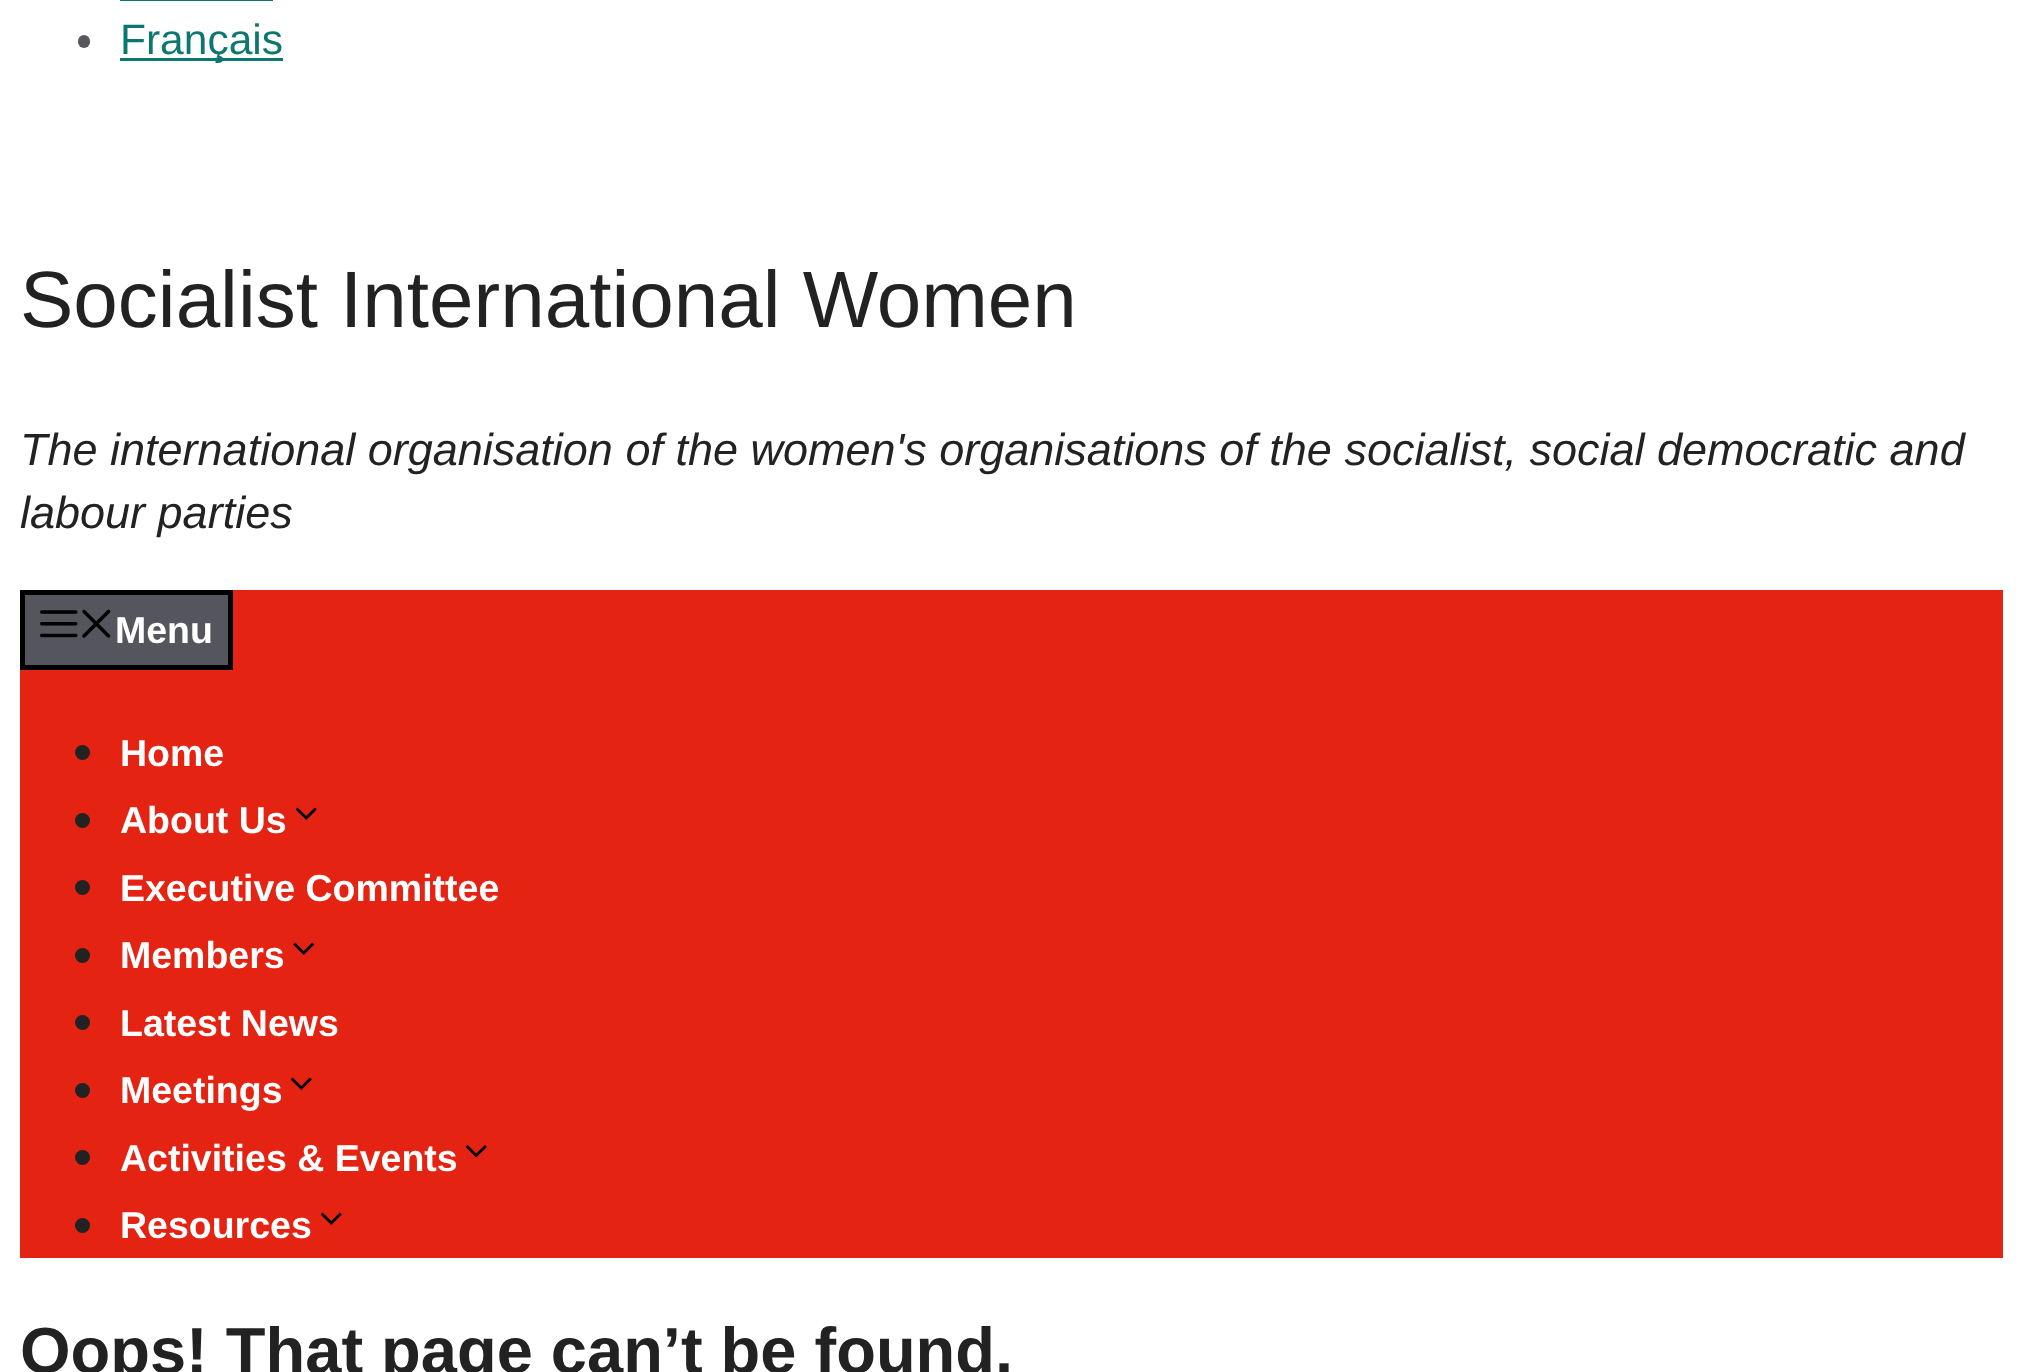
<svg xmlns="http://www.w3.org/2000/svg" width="2022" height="1372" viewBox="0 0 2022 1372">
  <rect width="100%" height="100%" fill="#ffffff"/>
  <rect x="120" y="0" width="153" height="1" fill="#0b776f"/>
  <rect x="78" y="35" width="12" height="13" rx="6" fill="#575760"/>
  <rect x="120" y="58" width="163" height="3" fill="#0b776f"/>
  <text x="120" y="54" font-family="Liberation Sans" font-size="42.5" fill="#0b776f">Français</text>
  <text x="20" y="327" font-family="Liberation Sans" font-size="80" fill="#222222">Socialist International Women</text>
  <text x="20" y="465" font-family="Liberation Sans" font-size="45" font-style="italic" fill="#222222">The international organisation of the women's organisations of the socialist, social democratic and</text>
  <text x="20" y="528" font-family="Liberation Sans" font-size="45" font-style="italic" fill="#222222">labour parties</text>
  <rect x="20" y="590" width="1983" height="668" fill="#e42313"/>
  <rect x="22.5" y="592.5" width="208" height="75" fill="#55555e" stroke="#000000" stroke-width="5"/>
  <image x="40" y="610" width="38" height="28" href="img1.png"/>
  <image x="82" y="609" width="29" height="29" href="img2.png"/>
  <text x="115" y="643" font-family="Liberation Sans" font-size="37.5" font-weight="bold" fill="#ffffff">Menu</text>
  <circle cx="82.5" cy="752.5" r="7.5" fill="#222222"/>
  <text x="120" y="766" font-family="Liberation Sans" font-size="37.5" font-weight="bold" fill="#ffffff">Home</text>
  <circle cx="82.5" cy="820.5" r="7.5" fill="#222222"/>
  <text x="120" y="833" font-family="Liberation Sans" font-size="37.5" font-weight="bold" fill="#ffffff">About Us</text>
  <image x="295" y="807" width="22" height="13" href="img3.png"/>
  <circle cx="82.5" cy="887.5" r="7.5" fill="#222222"/>
  <text x="120" y="901" font-family="Liberation Sans" font-size="37.5" font-weight="bold" fill="#ffffff">Executive Committee</text>
  <circle cx="82.5" cy="955.5" r="7.5" fill="#222222"/>
  <text x="120" y="968" font-family="Liberation Sans" font-size="37.5" font-weight="bold" fill="#ffffff">Members</text>
  <image x="293" y="942" width="21" height="13" href="img4.png"/>
  <circle cx="82.5" cy="1022.5" r="7.5" fill="#222222"/>
  <text x="120" y="1036" font-family="Liberation Sans" font-size="37.5" font-weight="bold" fill="#ffffff">Latest News</text>
  <circle cx="82.5" cy="1090.5" r="7.5" fill="#222222"/>
  <text x="120" y="1103" font-family="Liberation Sans" font-size="37.5" font-weight="bold" fill="#ffffff">Meetings</text>
  <image x="290" y="1077" width="22" height="13" href="img3.png"/>
  <circle cx="82.5" cy="1157.5" r="7.5" fill="#222222"/>
  <text x="120" y="1171" font-family="Liberation Sans" font-size="37.5" font-weight="bold" fill="#ffffff">Activities &amp; Events</text>
  <image x="465" y="1145" width="22" height="13" href="img5.png"/>
  <circle cx="82.5" cy="1225.5" r="7.5" fill="#222222"/>
  <text x="120" y="1238" font-family="Liberation Sans" font-size="37.5" font-weight="bold" fill="#ffffff">Resources</text>
  <image x="320" y="1212" width="22" height="13" href="img3.png"/>
  <text x="20" y="1373" font-family="Liberation Sans" font-size="65" font-weight="bold" fill="#222222">Oops! That page can’t be found.</text>
</svg>
